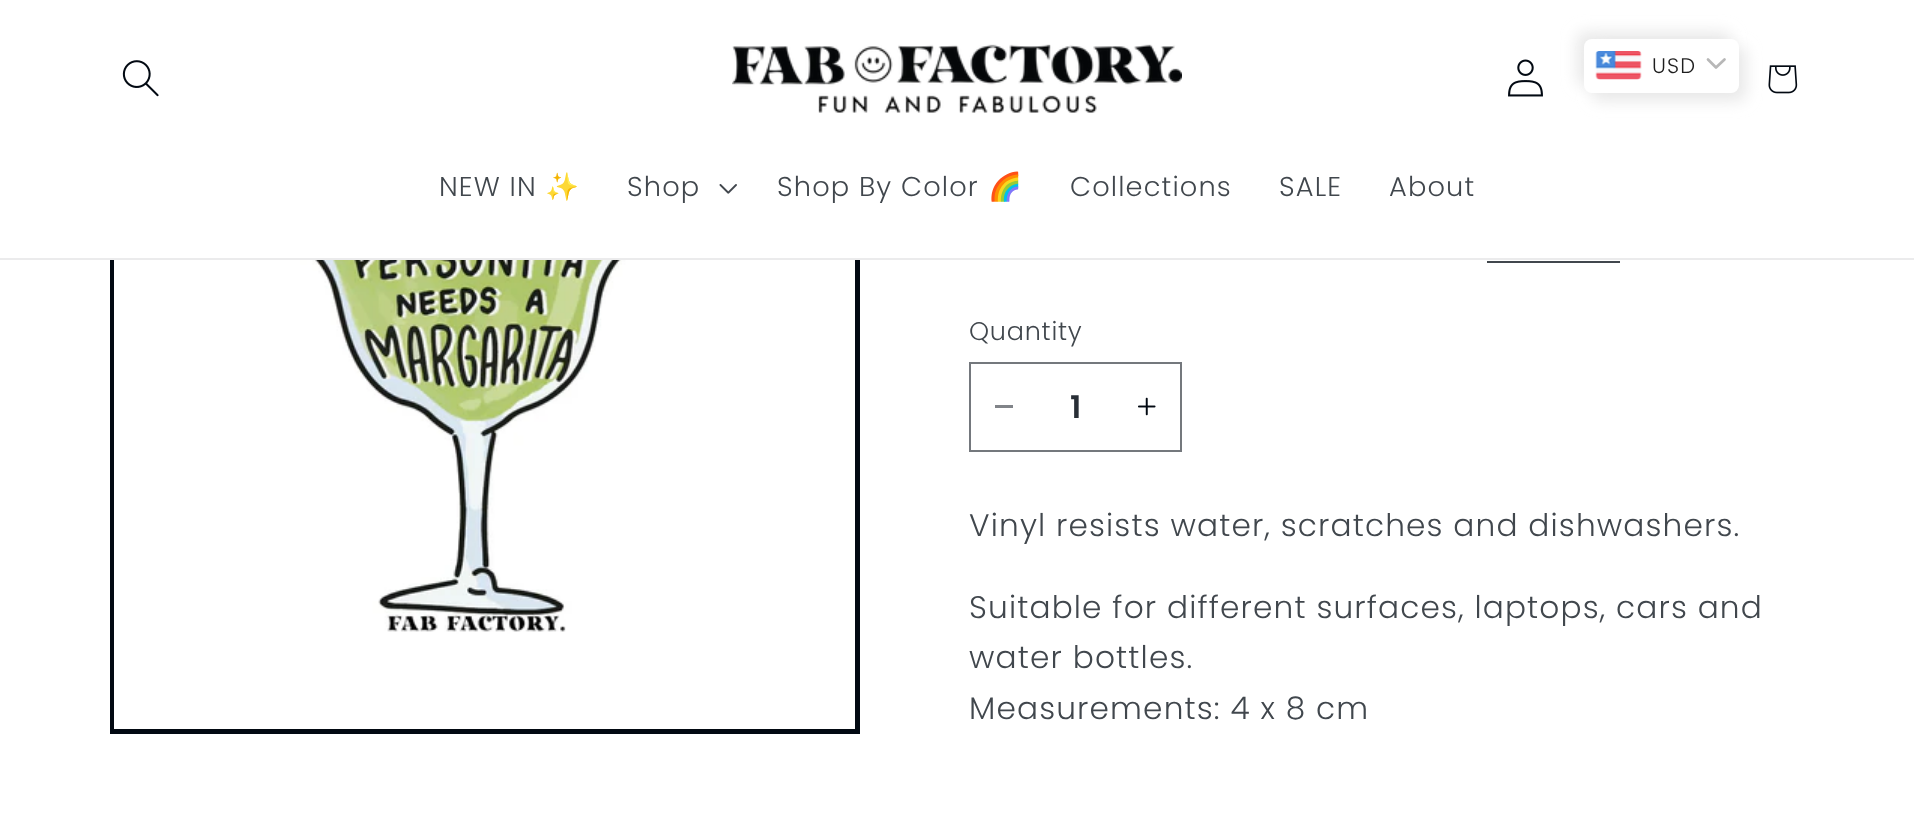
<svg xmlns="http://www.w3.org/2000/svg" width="1914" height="819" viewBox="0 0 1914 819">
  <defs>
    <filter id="blur1" x="-50%" y="-200%" width="200%" height="500%"><feGaussianBlur stdDeviation="7.5"/></filter>
  </defs>
  <rect width="100%" height="100%" fill="#ffffff"/>
  <rect x="112.5" y="-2.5" width="745" height="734" fill="none" stroke="#020912" stroke-width="5"/>
  <rect x="110" y="0" width="750" height="258" fill="#ffffff"/>
  <rect x="0" y="258" width="1914" height="2" fill="#ebebec"/>
  <image x="122" y="60" width="37" height="37" href="img1.png"/>
  <image x="732" y="44" width="450" height="69" href="img2.png"/>
  <image x="1508" y="59" width="35" height="38" href="img3.png"/>
  <rect x="1577" y="32" width="154" height="54" rx="8" fill="#e8e8e8" filter="url(#blur1)"/>
  <image x="1768" y="65" width="30" height="29" href="img5.png"/>
  <rect x="1592" y="47" width="154" height="54" rx="8" fill="#e8e8e8" filter="url(#blur1)"/>
  <rect x="1584" y="39" width="155" height="54" rx="8" fill="#ffffff"/>
  <image x="1595" y="51" width="47" height="29" href="img4.png"/>
  <text x="1652" y="73" font-family="Poppins" font-size="21" font-weight="300" letter-spacing="1.15" fill="#1e1e1e">USD</text>
  <path d="M1708 59.5L1716 67.5L1724.5 59.5" fill="none" stroke="#b7b7b7" stroke-width="2.7" stroke-linecap="round" stroke-linejoin="round"/>
  <text x="439" y="196" font-family="Poppins" font-size="27.25" font-weight="300" letter-spacing="1.15" fill="#41474d">NEW IN</text>
  <text x="545" y="196" font-family="Noto Color Emoji" font-size="27.25" letter-spacing="1.15" fill="#41474d">✨</text>
  <text x="627" y="196" font-family="Poppins" font-size="27.25" font-weight="300" letter-spacing="1.15" fill="#41474d">Shop</text>
  <image x="719" y="184" width="18" height="10" href="img6.png"/>
  <text x="777" y="196" font-family="Poppins" font-size="27.25" font-weight="300" letter-spacing="1.15" fill="#41474d">Shop By Color</text>
  <text x="988" y="196" font-family="Noto Color Emoji" font-size="27.25" letter-spacing="1.15" fill="#41474d">🌈</text>
  <text x="1070" y="196" font-family="Poppins" font-size="27.25" font-weight="300" letter-spacing="1.15" fill="#41474d">Collections</text>
  <text x="1279" y="196" font-family="Poppins" font-size="27.25" font-weight="300" letter-spacing="1.15" fill="#41474d">SALE</text>
  <text x="1389" y="196" font-family="Poppins" font-size="27.25" font-weight="300" letter-spacing="1.15" fill="#41474d">About</text>
  <image x="114" y="260" width="643" height="469" href="img7.png"/>
  <rect x="1487" y="261" width="133" height="2" fill="#41474d"/>
  <text x="969" y="340" font-family="Poppins" font-size="25.5" font-weight="300" letter-spacing="0.75" fill="#41474d">Quantity</text>
  <rect x="995" y="405" width="18" height="3" fill="#818489"/>
  <image x="1138" y="397" width="18" height="19" href="img8.png"/>
  <rect x="970" y="363" width="211" height="88" fill="none" stroke="#74787d" stroke-width="2"/>
  <text x="1070" y="418" font-family="Poppins" font-size="31.2" font-weight="600" fill="#282e36">1</text>
  <text x="969" y="536" font-family="Poppins" font-size="31.2" font-weight="300" letter-spacing="1.15" fill="#41474d">Vinyl resists water, scratches and dishwashers.</text>
  <text x="969" y="618" font-family="Poppins" font-size="31.2" font-weight="300" letter-spacing="1.15" fill="#41474d">Suitable for different surfaces, laptops, cars and</text>
  <text x="969" y="668" font-family="Poppins" font-size="31.2" font-weight="300" letter-spacing="1.15" fill="#41474d">water bottles.</text>
  <text x="969" y="719" font-family="Poppins" font-size="31.2" font-weight="300" letter-spacing="1.15" fill="#41474d">Measurements: 4 x 8 cm</text>
</svg>
